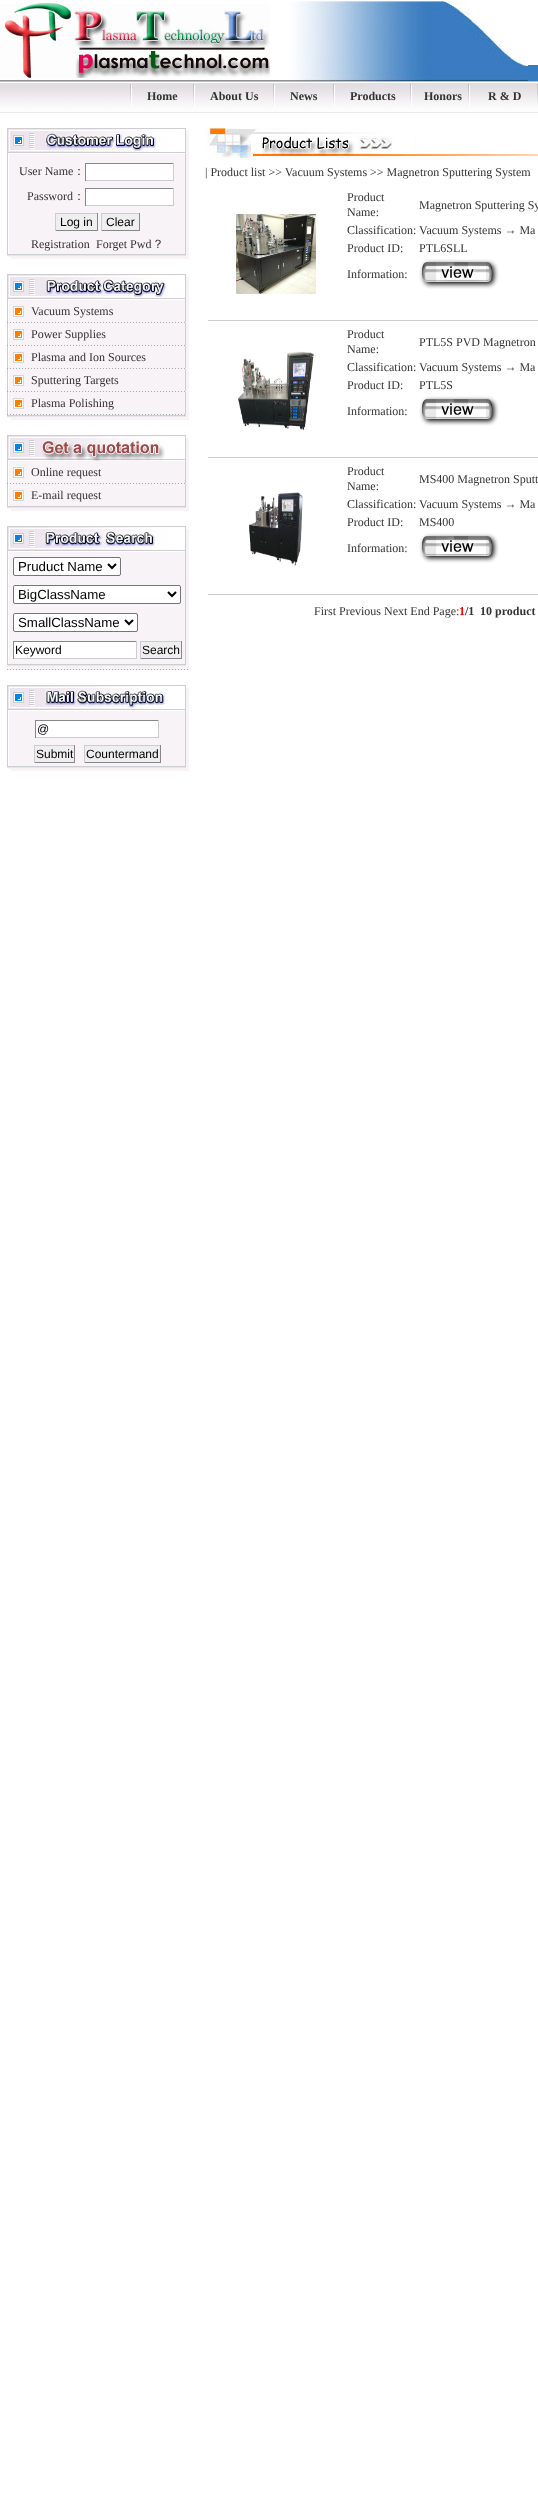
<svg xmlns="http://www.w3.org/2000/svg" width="538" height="2506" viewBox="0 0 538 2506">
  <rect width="100%" height="100%" fill="#ffffff"/>
  <rect x="0" y="80" width="270" height="1" fill="#919191"/>
  <image x="0" y="3" width="270" height="75" href="img1.png"/>
  <image x="270" y="1" width="258" height="80" href="img2.png"/>
  <rect x="528" y="65" width="10" height="16" fill="#387bbf"/>
  <image x="0" y="81" width="538" height="32" href="img3.png"/>
  <image x="130" y="84" width="2" height="23" href="img4.png"/>
  <text x="147" y="100" font-family="Liberation Serif" font-size="12" font-weight="bold" fill="#333333">Home</text>
  <image x="193" y="84" width="2" height="23" href="img4.png"/>
  <text x="210" y="100" font-family="Liberation Serif" font-size="12" font-weight="bold" fill="#333333">About Us</text>
  <image x="273" y="84" width="2" height="23" href="img4.png"/>
  <text x="290" y="100" font-family="Liberation Serif" font-size="12" font-weight="bold" fill="#333333">News</text>
  <image x="333" y="84" width="2" height="23" href="img4.png"/>
  <text x="350" y="100" font-family="Liberation Serif" font-size="12" font-weight="bold" fill="#333333">Products</text>
  <image x="410" y="84" width="2" height="23" href="img4.png"/>
  <text x="424" y="100" font-family="Liberation Serif" font-size="12" font-weight="bold" fill="#333333">Honors</text>
  <image x="468" y="84" width="2" height="23" href="img4.png"/>
  <text x="488" y="100" font-family="Liberation Serif" font-size="12" font-weight="bold" fill="#333333">R &amp; D</text>
  <image x="537" y="84" width="1" height="20" href="img5.png"/>
  <image x="7" y="128" width="182" height="26" href="img6.png"/>
  <image x="7" y="154" width="182" height="100" href="img7.png"/>
  <text x="19" y="175" font-family="Liberation Serif" font-size="12" fill="#333333">User Name</text>
  <text x="73" y="175" font-family="WenQuanYi Zen Hei" font-size="12" font-weight="500" fill="#333333">：</text>
  <rect x="86" y="164" width="87" height="16" fill="#ffffff"/>
  <rect x="85" y="163" width="89" height="1" fill="#888888"/>
  <rect x="173" y="163" width="1" height="18" fill="#cccccc"/>
  <rect x="85" y="180" width="89" height="1" fill="#cccccc"/>
  <rect x="85" y="163" width="1" height="18" fill="#888888"/>
  <text x="27" y="200" font-family="Liberation Serif" font-size="12" fill="#333333">Password</text>
  <text x="73" y="200" font-family="WenQuanYi Zen Hei" font-size="12" font-weight="500" fill="#333333">：</text>
  <rect x="86" y="189" width="87" height="16" fill="#ffffff"/>
  <rect x="85" y="188" width="89" height="1" fill="#888888"/>
  <rect x="173" y="188" width="1" height="18" fill="#cccccc"/>
  <rect x="85" y="205" width="89" height="1" fill="#cccccc"/>
  <rect x="85" y="188" width="1" height="18" fill="#888888"/>
  <rect x="56" y="214" width="41" height="16" fill="#efefef"/>
  <rect x="55" y="213" width="43" height="1" fill="#cccccc"/>
  <rect x="97" y="213" width="1" height="18" fill="#888888"/>
  <rect x="55" y="230" width="43" height="1" fill="#888888"/>
  <rect x="55" y="213" width="1" height="18" fill="#cccccc"/>
  <text x="60" y="226" font-family="Liberation Sans" font-size="12" fill="#000000">Log in</text>
  <rect x="102" y="214" width="37" height="16" fill="#efefef"/>
  <rect x="101" y="213" width="39" height="1" fill="#cccccc"/>
  <rect x="139" y="213" width="1" height="18" fill="#888888"/>
  <rect x="101" y="230" width="39" height="1" fill="#888888"/>
  <rect x="101" y="213" width="1" height="18" fill="#cccccc"/>
  <text x="106" y="226" font-family="Liberation Sans" font-size="12" fill="#000000">Clear</text>
  <text x="31" y="248" font-family="Liberation Serif" font-size="12" fill="#333333">Registration</text>
  <text x="96" y="248" font-family="Liberation Serif" font-size="12" fill="#333333">Forget Pwd</text>
  <text x="152" y="248" font-family="WenQuanYi Zen Hei" font-size="12" font-weight="500" fill="#333333">？</text>
  <image x="7" y="254" width="182" height="5" href="img8.png"/>
  <image x="7" y="274" width="182" height="26" href="img9.png"/>
  <image x="7" y="300" width="182" height="115" href="img10.png"/>
  <image x="13" y="306" width="11" height="11" href="img11.png"/>
  <text x="31" y="315" font-family="Liberation Serif" font-size="12" fill="#333333">Vacuum Systems</text>
  <image x="7" y="322" width="180" height="1" href="img12.png"/>
  <image x="13" y="329" width="11" height="11" href="img11.png"/>
  <text x="31" y="338" font-family="Liberation Serif" font-size="12" fill="#333333">Power Supplies</text>
  <image x="7" y="345" width="180" height="1" href="img12.png"/>
  <image x="13" y="352" width="11" height="11" href="img11.png"/>
  <text x="31" y="361" font-family="Liberation Serif" font-size="12" fill="#333333">Plasma and Ion Sources</text>
  <image x="7" y="368" width="180" height="1" href="img12.png"/>
  <image x="13" y="375" width="11" height="11" href="img11.png"/>
  <text x="31" y="384" font-family="Liberation Serif" font-size="12" fill="#333333">Sputtering Targets</text>
  <image x="7" y="391" width="180" height="1" href="img12.png"/>
  <image x="13" y="398" width="11" height="11" href="img11.png"/>
  <text x="31" y="407" font-family="Liberation Serif" font-size="12" fill="#333333">Plasma Polishing</text>
  <image x="7" y="414" width="180" height="1" href="img12.png"/>
  <image x="7" y="415" width="182" height="5" href="img8.png"/>
  <image x="7" y="435" width="182" height="26" href="img13.png"/>
  <image x="7" y="461" width="182" height="45" href="img14.png"/>
  <image x="13" y="467" width="11" height="11" href="img11.png"/>
  <text x="31" y="476" font-family="Liberation Serif" font-size="12" fill="#333333">Online request</text>
  <image x="7" y="483" width="180" height="1" href="img12.png"/>
  <image x="13" y="490" width="11" height="11" href="img11.png"/>
  <text x="31" y="499" font-family="Liberation Serif" font-size="12" fill="#333333">E-mail request</text>
  <image x="7" y="506" width="182" height="5" href="img8.png"/>
  <image x="7" y="526" width="182" height="26" href="img15.png"/>
  <image x="7" y="552" width="182" height="112" href="img16.png"/>
  <rect x="13.5" y="557.5" width="107" height="18" rx="1.5" fill="#ffffff" stroke="#767676"/>
  <path d="M108 564L112 568L116 564" fill="none" stroke="#000000" stroke-width="2"/>
  <text x="18" y="571" font-family="Liberation Sans" font-size="13.25" fill="#000000">Pruduct Name</text>
  <rect x="13.5" y="585.5" width="167" height="18" rx="1.5" fill="#ffffff" stroke="#767676"/>
  <path d="M168 592L172 596L176 592" fill="none" stroke="#000000" stroke-width="2"/>
  <text x="18" y="599" font-family="Liberation Sans" font-size="13.25" fill="#000000">BigClassName</text>
  <rect x="13.5" y="613.5" width="124" height="18" rx="1.5" fill="#ffffff" stroke="#767676"/>
  <path d="M125 620L129 624L133 620" fill="none" stroke="#000000" stroke-width="2"/>
  <text x="18" y="627" font-family="Liberation Sans" font-size="13.25" fill="#000000">SmallClassName</text>
  <rect x="14" y="642" width="122" height="16" fill="#ffffff"/>
  <rect x="13" y="641" width="124" height="1" fill="#888888"/>
  <rect x="136" y="641" width="1" height="18" fill="#cccccc"/>
  <rect x="13" y="658" width="124" height="1" fill="#cccccc"/>
  <rect x="13" y="641" width="1" height="18" fill="#888888"/>
  <text x="15" y="654" font-family="Liberation Sans" font-size="12" fill="#000000">Keyword</text>
  <rect x="141" y="642" width="40" height="16" fill="#efefef"/>
  <rect x="140" y="641" width="42" height="1" fill="#cccccc"/>
  <rect x="181" y="641" width="1" height="18" fill="#888888"/>
  <rect x="140" y="658" width="42" height="1" fill="#888888"/>
  <rect x="140" y="641" width="1" height="18" fill="#cccccc"/>
  <text x="142" y="654" font-family="Liberation Sans" font-size="12" fill="#000000">Search</text>
  <image x="7" y="664" width="182" height="5" href="img8.png"/>
  <image x="7" y="669" width="182" height="1" href="img17.png"/>
  <image x="7" y="685" width="182" height="26" href="img18.png"/>
  <image x="7" y="711" width="182" height="55" href="img19.png"/>
  <rect x="36" y="721" width="122" height="16" fill="#ffffff"/>
  <rect x="35" y="720" width="124" height="1" fill="#888888"/>
  <rect x="158" y="720" width="1" height="18" fill="#cccccc"/>
  <rect x="35" y="737" width="124" height="1" fill="#cccccc"/>
  <rect x="35" y="720" width="1" height="18" fill="#888888"/>
  <text x="37" y="733" font-family="Liberation Sans" font-size="12" fill="#000000">@</text>
  <rect x="35" y="746" width="39" height="16" fill="#efefef"/>
  <rect x="34" y="745" width="41" height="1" fill="#cccccc"/>
  <rect x="74" y="745" width="1" height="18" fill="#888888"/>
  <rect x="34" y="762" width="41" height="1" fill="#888888"/>
  <rect x="34" y="745" width="1" height="18" fill="#cccccc"/>
  <text x="36" y="758" font-family="Liberation Sans" font-size="12" fill="#000000">Submit</text>
  <rect x="85" y="746" width="75" height="16" fill="#efefef"/>
  <rect x="84" y="745" width="77" height="1" fill="#cccccc"/>
  <rect x="160" y="745" width="1" height="18" fill="#888888"/>
  <rect x="84" y="762" width="77" height="1" fill="#888888"/>
  <rect x="84" y="745" width="1" height="18" fill="#cccccc"/>
  <text x="86" y="758" font-family="Liberation Sans" font-size="12" fill="#000000">Countermand</text>
  <image x="7" y="766" width="182" height="5" href="img8.png"/>
  <image x="205" y="128" width="333" height="30" href="img20.png"/>
  <text x="205" y="176" font-family="Liberation Serif" font-size="12" fill="#333333">| Product list &gt;&gt; Vacuum Systems &gt;&gt; Magnetron Sputtering System</text>
  <text x="347" y="201" font-family="Liberation Serif" font-size="12" fill="#333333">Product</text>
  <text x="347" y="216" font-family="Liberation Serif" font-size="12" fill="#333333">Name:</text>
  <text x="419" y="209" font-family="Liberation Serif" font-size="12" fill="#333333">Magnetron Sputtering Sy</text>
  <image x="236" y="214" width="80" height="80" href="img21.png"/>
  <text x="347" y="234" font-family="Liberation Serif" font-size="12" fill="#333333">Classification: Vacuum Systems → Ma</text>
  <text x="347" y="252" font-family="Liberation Serif" font-size="12" fill="#333333">Product ID:</text>
  <text x="419" y="252" font-family="Liberation Serif" font-size="12" fill="#333333">PTL6SLL</text>
  <text x="347" y="278" font-family="Liberation Serif" font-size="12" fill="#333333">Information:</text>
  <image x="419" y="259" width="80" height="30" href="img22.png"/>
  <rect x="208" y="320" width="330" height="1" fill="#cccccc"/>
  <text x="347" y="338" font-family="Liberation Serif" font-size="12" fill="#333333">Product</text>
  <text x="347" y="353" font-family="Liberation Serif" font-size="12" fill="#333333">Name:</text>
  <text x="419" y="346" font-family="Liberation Serif" font-size="12" fill="#333333">PTL5S PVD Magnetron</text>
  <image x="238" y="351" width="76" height="80" href="img23.png"/>
  <text x="347" y="371" font-family="Liberation Serif" font-size="12" fill="#333333">Classification: Vacuum Systems → Ma</text>
  <text x="347" y="389" font-family="Liberation Serif" font-size="12" fill="#333333">Product ID:</text>
  <text x="419" y="389" font-family="Liberation Serif" font-size="12" fill="#333333">PTL5S</text>
  <text x="347" y="415" font-family="Liberation Serif" font-size="12" fill="#333333">Information:</text>
  <image x="419" y="396" width="80" height="30" href="img22.png"/>
  <rect x="208" y="457" width="330" height="1" fill="#cccccc"/>
  <text x="347" y="475" font-family="Liberation Serif" font-size="12" fill="#333333">Product</text>
  <text x="347" y="490" font-family="Liberation Serif" font-size="12" fill="#333333">Name:</text>
  <text x="419" y="483" font-family="Liberation Serif" font-size="12" fill="#333333">MS400 Magnetron Sputt</text>
  <image x="249" y="492" width="54" height="74" href="img24.png"/>
  <text x="347" y="508" font-family="Liberation Serif" font-size="12" fill="#333333">Classification: Vacuum Systems → Ma</text>
  <text x="347" y="526" font-family="Liberation Serif" font-size="12" fill="#333333">Product ID:</text>
  <text x="419" y="526" font-family="Liberation Serif" font-size="12" fill="#333333">MS400</text>
  <text x="347" y="552" font-family="Liberation Serif" font-size="12" fill="#333333">Information:</text>
  <image x="419" y="533" width="80" height="30" href="img22.png"/>
  <rect x="208" y="594" width="330" height="1" fill="#cccccc"/>
  <text x="314" y="615" font-family="Liberation Serif" font-size="12" fill="#333333">First Previous Next End Page:</text>
  <text x="459" y="615" font-family="Liberation Serif" font-size="12" font-weight="bold" fill="#ff0000">1</text>
  <text x="465" y="615" font-family="Liberation Serif" font-size="12" font-weight="bold" fill="#333333">/1</text>
  <text x="480" y="615" font-family="Liberation Serif" font-size="12" font-weight="bold" fill="#333333">10 product</text>
</svg>
